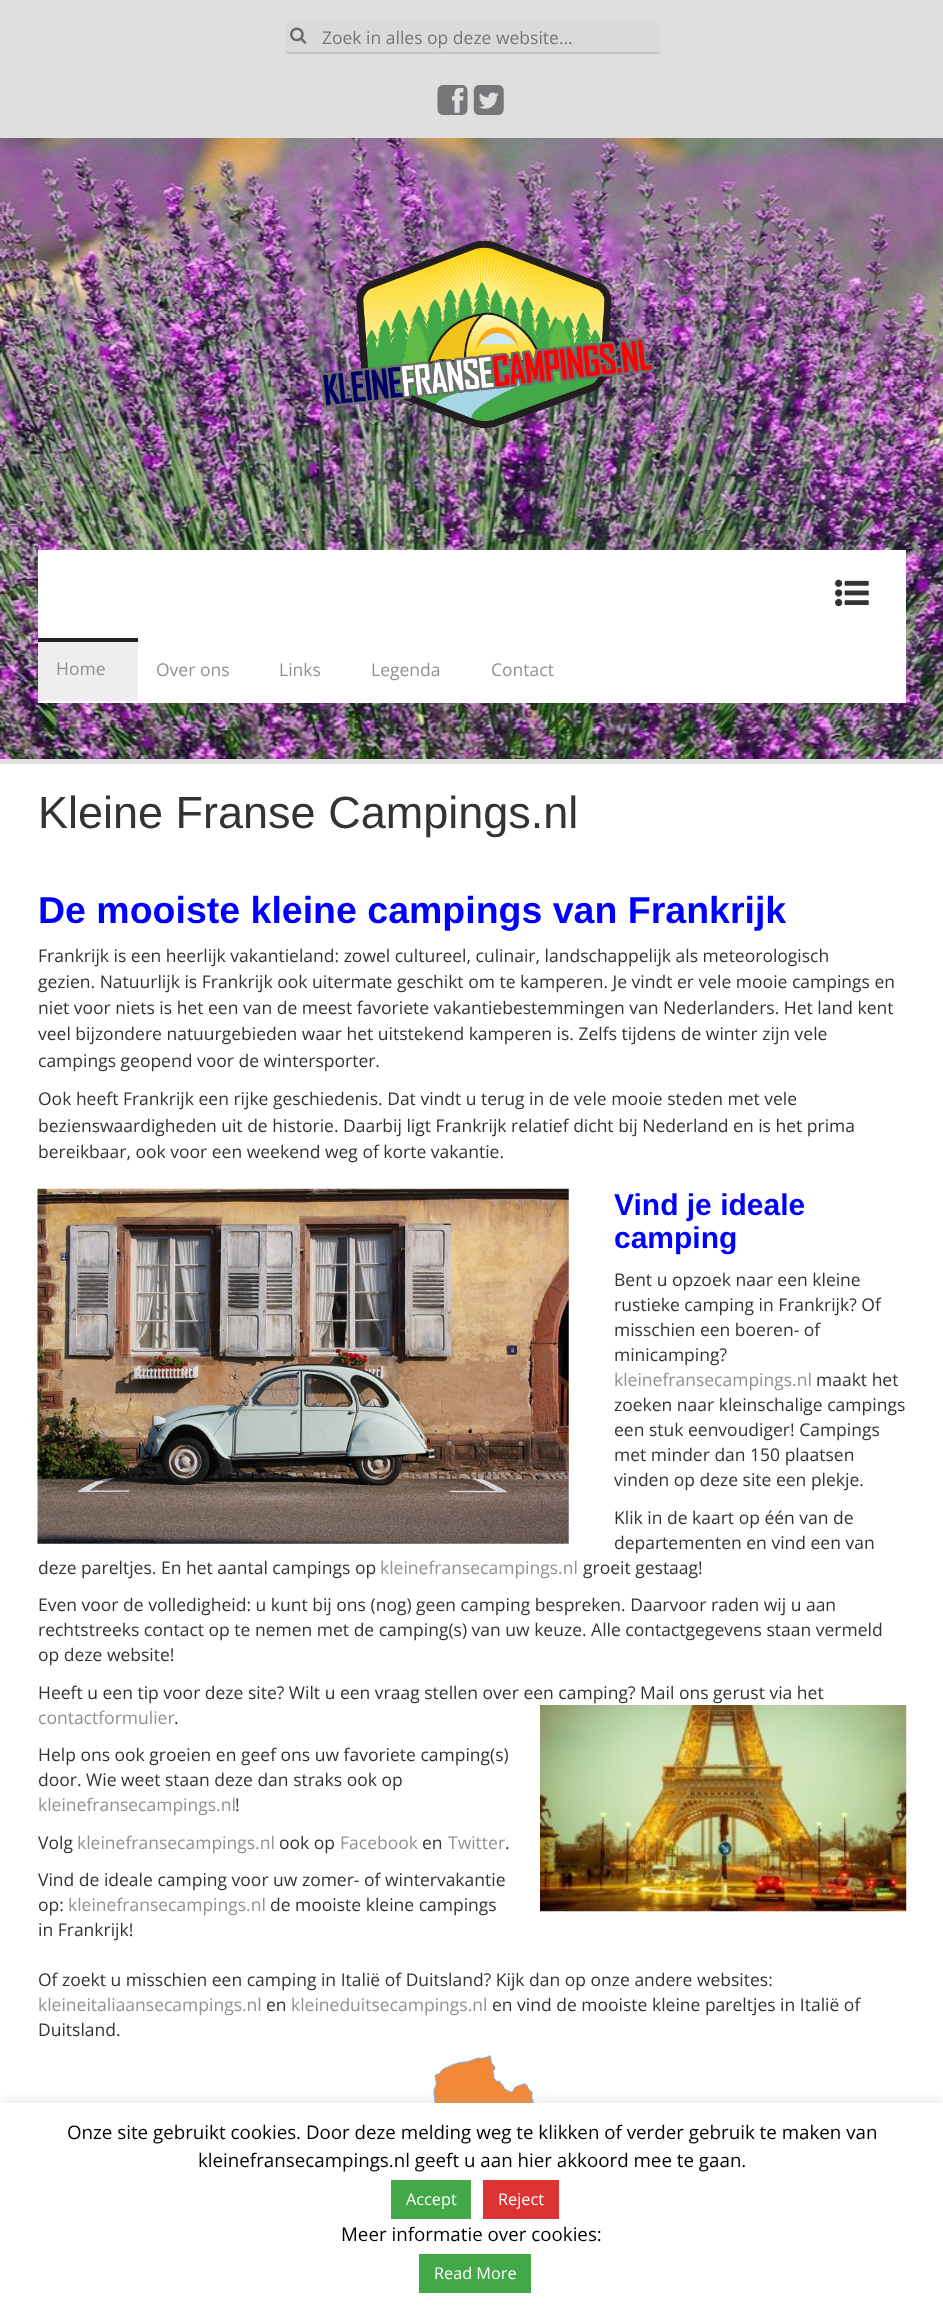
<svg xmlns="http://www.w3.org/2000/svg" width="943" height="2307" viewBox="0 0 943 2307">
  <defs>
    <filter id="blur1" x="-50%" y="-200%" width="200%" height="500%"><feGaussianBlur stdDeviation="6"/></filter>
  </defs>
  <rect width="100%" height="100%" fill="#ffffff"/>
  <rect x="0" y="0" width="943" height="138" fill="#dfdfdf"/>
  <rect x="285" y="21" width="375" height="33" rx="4" fill="#dadada"/>
  <image x="290" y="27" width="17" height="17" href="img1.png"/>
  <path d="M285 49C285 52 286 54 289 54H656C659 54 660 52 660 49C660 51 658 52 656 52H289C287 52 285 51 285 49Z" fill="#c6c6c6"/>
  <text x="322" y="44" font-family="Open Sans" font-size="17.5" fill="#78757a">Zoek in alles op deze website...</text>
  <image x="437" y="85" width="31" height="30" href="img2.png"/>
  <image x="473" y="85" width="31" height="30" href="img3.png"/>
  <image x="0" y="138" width="943" height="621" href="img9.png"/>
  <image x="320" y="240" width="335" height="189" href="img4.png"/>
  <rect x="38" y="550" width="868" height="153" fill="#ffffff"/>
  <image x="835" y="579" width="34" height="28" href="img5.png"/>
  <rect x="38" y="642" width="100" height="59" fill="#eeeeee"/>
  <rect x="38" y="638" width="100" height="4" fill="#222222"/>
  <text x="56" y="675" font-family="Open Sans" font-size="17.5" fill="#918f93">Home</text>
  <text x="156" y="676" font-family="Open Sans" font-size="17.5" fill="#918f93">Over ons</text>
  <text x="279" y="676" font-family="Open Sans" font-size="17.5" fill="#918f93">Links</text>
  <text x="371" y="676" font-family="Open Sans" font-size="17.5" fill="#918f93">Legenda</text>
  <text x="491" y="676" font-family="Open Sans" font-size="17.5" fill="#918f93">Contact</text>
  <rect x="0" y="759" width="943" height="5" fill="#dfdfdf"/>
  <text x="38" y="828" font-family="Liberation Sans" font-size="45" fill="#333333">Kleine Franse Campings.nl</text>
  <text x="38" y="923" font-family="Liberation Sans" font-size="37.5" font-weight="bold" fill="#0000ff">De mooiste kleine campings van Frankrijk</text>
  <text x="38" y="962" font-family="Open Sans" font-size="17.5" fill="#333333">Frankrijk is een heerlijk vakantieland: zowel cultureel, culinair, landschappelijk als meteorologisch</text>
  <text x="38" y="988" font-family="Open Sans" font-size="17.5" fill="#333333">gezien. Natuurlijk is Frankrijk ook uitermate geschikt om te kamperen. Je vindt er vele mooie campings en</text>
  <text x="38" y="1014" font-family="Open Sans" font-size="17.5" fill="#333333">niet voor niets is het een van de meest favoriete vakantiebestemmingen van Nederlanders. Het land kent</text>
  <text x="38" y="1040" font-family="Open Sans" font-size="17.5" fill="#333333">veel bijzondere natuurgebieden waar het uitstekend kamperen is. Zelfs tijdens de winter zijn vele</text>
  <text x="38" y="1067" font-family="Open Sans" font-size="17.5" fill="#333333">campings geopend voor de wintersporter.</text>
  <text x="38" y="1105" font-family="Open Sans" font-size="17.5" fill="#333333">Ook heeft Frankrijk een rijke geschiedenis. Dat vindt u terug in de vele mooie steden met vele</text>
  <text x="38" y="1132" font-family="Open Sans" font-size="17.5" fill="#333333">bezienswaardigheden uit de historie. Daarbij ligt Frankrijk relatief dicht bij Nederland en is het prima</text>
  <text x="38" y="1158" font-family="Open Sans" font-size="17.5" fill="#333333">bereikbaar, ook voor een weekend weg of korte vakantie.</text>
  <image x="37" y="1188" width="532" height="356" href="img6.png"/>
  <text x="614" y="1215" font-family="Liberation Sans" font-size="30" font-weight="bold" fill="#0000ff">Vind je ideale</text>
  <text x="614" y="1248" font-family="Liberation Sans" font-size="30" font-weight="bold" fill="#0000ff">camping</text>
  <text x="614" y="1286" font-family="Open Sans" font-size="17.5" fill="#333333">Bent u opzoek naar een kleine</text>
  <text x="614" y="1311" font-family="Open Sans" font-size="17.5" fill="#333333">rustieke camping in Frankrijk? Of</text>
  <text x="614" y="1336" font-family="Open Sans" font-size="17.5" fill="#333333">misschien een boeren- of</text>
  <text x="614" y="1361" font-family="Open Sans" font-size="17.5" fill="#333333">minicamping?</text>
  <text x="614" y="1386" font-family="Open Sans" font-size="17.5" fill="#918f93">kleinefransecampings.nl</text>
  <text x="816" y="1386" font-family="Open Sans" font-size="17.5" fill="#333333">maakt het</text>
  <text x="614" y="1411" font-family="Open Sans" font-size="17.5" fill="#333333">zoeken naar kleinschalige campings</text>
  <text x="614" y="1436" font-family="Open Sans" font-size="17.5" fill="#333333">een stuk eenvoudiger! Campings</text>
  <text x="614" y="1461" font-family="Open Sans" font-size="17.5" fill="#333333">met minder dan 150 plaatsen</text>
  <text x="614" y="1486" font-family="Open Sans" font-size="17.5" fill="#333333">vinden op deze site een plekje.</text>
  <text x="614" y="1524" font-family="Open Sans" font-size="17.5" fill="#333333">Klik in de kaart op één van de</text>
  <text x="614" y="1549" font-family="Open Sans" font-size="17.5" fill="#333333">departementen en vind een van</text>
  <text x="38" y="1574" font-family="Open Sans" font-size="17.5" fill="#333333">deze pareltjes. En het aantal campings op</text>
  <text x="380" y="1574" font-family="Open Sans" font-size="17.5" fill="#918f93">kleinefransecampings.nl</text>
  <text x="583" y="1574" font-family="Open Sans" font-size="17.5" fill="#333333">groeit gestaag!</text>
  <text x="38" y="1611" font-family="Open Sans" font-size="17.5" fill="#333333">Even voor de volledigheid: u kunt bij ons (nog) geen camping bespreken. Daarvoor raden wij u aan</text>
  <text x="38" y="1636" font-family="Open Sans" font-size="17.5" fill="#333333">rechtstreeks contact op te nemen met de camping(s) van uw keuze. Alle contactgegevens staan vermeld</text>
  <text x="38" y="1661" font-family="Open Sans" font-size="17.5" fill="#333333">op deze website!</text>
  <text x="38" y="1699" font-family="Open Sans" font-size="17.5" fill="#333333">Heeft u een tip voor deze site? Wilt u een vraag stellen over een camping? Mail ons gerust via het</text>
  <text x="38" y="1724" font-family="Open Sans" font-size="17.5" fill="#918f93">contactformulier</text>
  <text x="174" y="1724" font-family="Open Sans" font-size="17.5" fill="#333333">.</text>
  <image x="540" y="1705" width="367" height="207" href="img7.png"/>
  <text x="38" y="1761" font-family="Open Sans" font-size="17.5" fill="#333333">Help ons ook groeien en geef ons uw favoriete camping(s)</text>
  <text x="38" y="1786" font-family="Open Sans" font-size="17.5" fill="#333333">door. Wie weet staan deze dan straks ook op</text>
  <text x="38" y="1811" font-family="Open Sans" font-size="17.5" fill="#918f93">kleinefransecampings.nl</text>
  <text x="235" y="1811" font-family="Open Sans" font-size="17.5" fill="#333333">!</text>
  <text x="38" y="1849" font-family="Open Sans" font-size="17.5" fill="#333333">Volg</text>
  <text x="77" y="1849" font-family="Open Sans" font-size="17.5" fill="#918f93">kleinefransecampings.nl</text>
  <text x="279" y="1849" font-family="Open Sans" font-size="17.5" fill="#333333">ook op</text>
  <text x="340" y="1849" font-family="Open Sans" font-size="17.5" fill="#918f93">Facebook</text>
  <text x="422" y="1849" font-family="Open Sans" font-size="17.5" fill="#333333">en</text>
  <text x="448" y="1849" font-family="Open Sans" font-size="17.5" fill="#918f93">Twitter</text>
  <text x="505" y="1849" font-family="Open Sans" font-size="17.5" fill="#333333">.</text>
  <text x="38" y="1886" font-family="Open Sans" font-size="17.5" fill="#333333">Vind de ideale camping voor uw zomer- of wintervakantie</text>
  <text x="38" y="1911" font-family="Open Sans" font-size="17.5" fill="#333333">op:</text>
  <text x="68" y="1911" font-family="Open Sans" font-size="17.5" fill="#918f93">kleinefransecampings.nl</text>
  <text x="270" y="1911" font-family="Open Sans" font-size="17.5" fill="#333333">de mooiste kleine campings</text>
  <text x="38" y="1936" font-family="Open Sans" font-size="17.5" fill="#333333">in Frankrijk!</text>
  <text x="38" y="1986" font-family="Open Sans" font-size="17.5" fill="#333333">Of zoekt u misschien een camping in Italië of Duitsland? Kijk dan op onze andere websites:</text>
  <text x="38" y="2011" font-family="Open Sans" font-size="17.5" fill="#918f93">kleineitaliaansecampings.nl</text>
  <text x="266" y="2011" font-family="Open Sans" font-size="17.5" fill="#333333">en</text>
  <text x="291" y="2011" font-family="Open Sans" font-size="17.5" fill="#918f93">kleineduitsecampings.nl</text>
  <text x="492" y="2011" font-family="Open Sans" font-size="17.5" fill="#333333">en vind de mooiste kleine pareltjes in Italië of</text>
  <text x="38" y="2036" font-family="Open Sans" font-size="17.5" fill="#333333">Duitsland.</text>
  <image x="433" y="2055" width="101" height="48" href="img8.png"/>
  <rect x="0" y="2101" width="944" height="205" fill="#acabab" fill-opacity="0.3" filter="url(#blur1)"/>
  <rect x="0" y="2103" width="943" height="204" fill="#ffffff"/>
  <text x="67" y="2139" font-family="Open Sans" font-size="18.75" fill="#000000">Onze site gebruikt cookies. Door deze melding weg te klikken of verder gebruik te maken van</text>
  <text x="198" y="2167" font-family="Open Sans" font-size="18.75" fill="#000000">kleinefransecampings.nl geeft u aan hier akkoord mee te gaan.</text>
  <rect x="391" y="2180" width="80" height="39" fill="#42a848"/>
  <text x="406" y="2205" font-family="Open Sans" font-size="16.25" fill="#ffffff">Accept</text>
  <rect x="483" y="2180" width="76" height="39" fill="#dd3333"/>
  <text x="498" y="2205" font-family="Open Sans" font-size="16.25" fill="#ffffff">Reject</text>
  <text x="341" y="2241" font-family="Open Sans" font-size="18.75" fill="#000000">Meer informatie over cookies:</text>
  <rect x="419" y="2254" width="112" height="39" fill="#42a848"/>
  <text x="434" y="2279" font-family="Open Sans" font-size="16.25" fill="#ffffff">Read More</text>
</svg>
